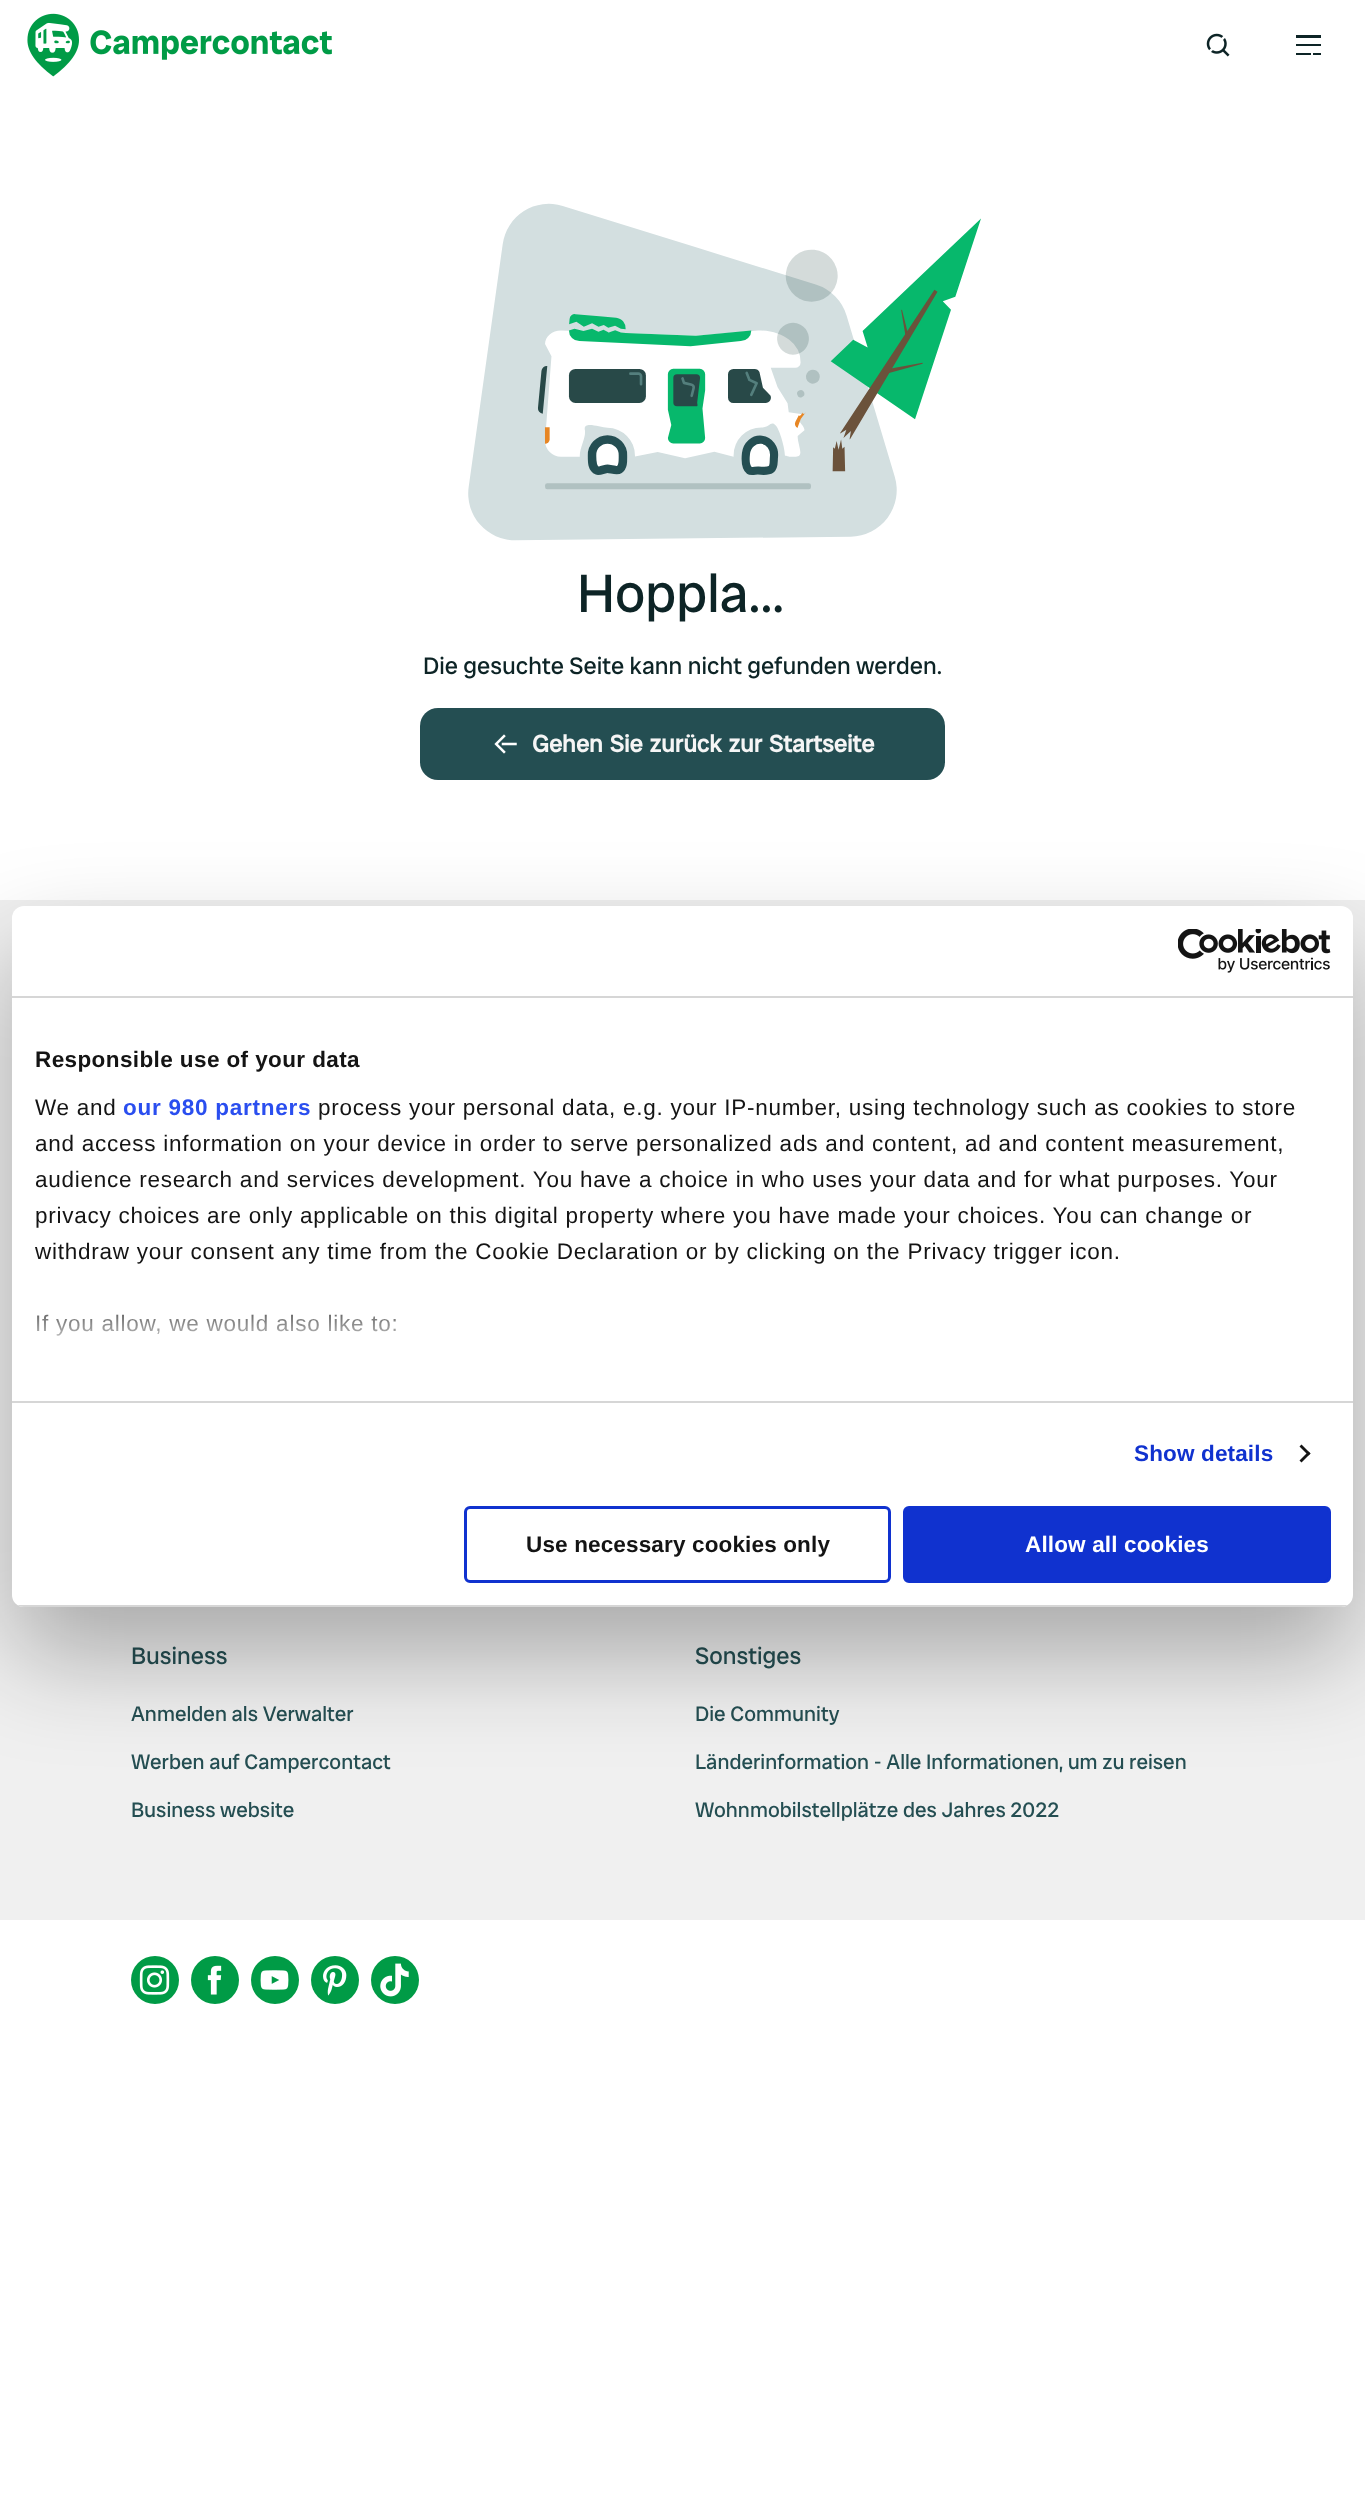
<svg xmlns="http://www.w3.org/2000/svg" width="1365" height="2510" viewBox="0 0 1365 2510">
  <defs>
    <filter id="blur1" x="-50%" y="-200%" width="200%" height="500%"><feGaussianBlur stdDeviation="51"/></filter>
    <linearGradient id="g1" gradientUnits="userSpaceOnUse" x1="673" y1="1400" x2="673" y2="1288"><stop offset="0" stop-color="#ffffff"/><stop offset="0.5" stop-color="#ffffff" stop-opacity="0.8"/><stop offset="1" stop-color="#ffffff" stop-opacity="0"/></linearGradient>
    <clipPath id="clip1"><rect x="12" y="906" width="1341" height="701" rx="12"/></clipPath>
  </defs>
  <rect width="100%" height="100%" fill="#ffffff"/>
  <image x="27" y="13" width="305" height="64" href="img1.png"/>
  <image x="1206" y="33" width="24" height="24" href="img2.png"/>
  <rect x="1296" y="35" width="25" height="3" fill="#0d2426"/>
  <rect x="1296" y="44" width="25" height="2" fill="#0d2426"/>
  <rect x="1296" y="53" width="15" height="2" fill="#0d2426"/>
  <rect x="1313" y="53" width="8" height="2" fill="#0d2426"/>
  <image x="468" y="203" width="513" height="338" href="img3.png"/>
  <text x="577" y="612" font-family="Radio Canada Big" font-size="54" fill="#0d2426">Hoppla...</text>
  <text x="423" y="674" font-family="Radio Canada Big" font-size="24" fill="#0d2426">Die gesuchte Seite kann nicht gefunden werden.</text>
  <rect x="420" y="708" width="525" height="72" rx="18" fill="#244e52"/>
  <image x="494" y="734" width="23" height="20" href="img4.png"/>
  <text x="532" y="752" word-spacing="1.5" font-family="Radio Canada Big" font-size="24" font-weight="bold" fill="#f5f5f5">Gehen Sie zurück zur Startseite</text>
  <rect x="0" y="900" width="1365" height="1020" fill="#f0f0f0"/>
  <text x="131" y="1664" font-family="Radio Canada Big" font-size="24" fill="#244e52">Business</text>
  <text x="131" y="1721" font-family="Radio Canada Big" font-size="21" fill="#244e52">Anmelden als Verwalter</text>
  <text x="131" y="1769" font-family="Radio Canada Big" font-size="21" fill="#244e52">Werben auf Campercontact</text>
  <text x="131" y="1817" font-family="Radio Canada Big" font-size="21" fill="#244e52">Business website</text>
  <text x="695" y="1664" font-family="Radio Canada Big" font-size="24" fill="#244e52">Sonstiges</text>
  <text x="695" y="1721" font-family="Radio Canada Big" font-size="21" fill="#244e52">Die Community</text>
  <text x="695" y="1769" font-family="Radio Canada Big" font-size="21" fill="#244e52">Länderinformation - Alle Informationen, um zu reisen</text>
  <text x="695" y="1817" font-family="Radio Canada Big" font-size="21" fill="#244e52">Wohnmobilstellplätze des Jahres 2022</text>
  <circle cx="155" cy="1980" r="24" fill="#009b46"/>
  <image x="139" y="1965" width="31" height="30" href="img5.png"/>
  <circle cx="215" cy="1980" r="24" fill="#009b46"/>
  <image x="207" y="1965" width="15" height="30" href="img6.png"/>
  <circle cx="275" cy="1980" r="24" fill="#009b46"/>
  <image x="260" y="1970" width="29" height="20" href="img7.png"/>
  <circle cx="335" cy="1980" r="24" fill="#009b46"/>
  <image x="323" y="1965" width="24" height="31" href="img8.png"/>
  <circle cx="395" cy="1980" r="24" fill="#009b46"/>
  <image x="380" y="1963" width="29" height="34" href="img9.png"/>
  <rect x="12" y="954" width="1341" height="701" rx="12" fill="#000000" fill-opacity="0.3" filter="url(#blur1)"/>
  <rect x="12" y="906" width="1341" height="701" rx="12" fill="#ffffff"/>
  <rect x="12" y="996" width="1341" height="2" fill="#d6d6d6"/>
  <image x="1178" y="929" width="153" height="44" href="img10.png"/>
  <rect x="12" y="1401" width="1341" height="2" fill="#d6d6d6"/>
  <text x="35" y="1067" font-family="Liberation Sans" font-size="22.5" font-weight="bold" letter-spacing="0.4" fill="#141414">Responsible use of your data</text>
  <text x="35" y="1115" font-family="Liberation Sans" font-size="22.5" letter-spacing="0.75" fill="#141414">We and</text>
  <text x="123" y="1115" font-family="Liberation Sans" font-size="22.5" font-weight="bold" letter-spacing="0.75" fill="#2a4eef">our 980 partners</text>
  <text x="318" y="1115" font-family="Liberation Sans" font-size="22.5" letter-spacing="0.75" fill="#141414">process your personal data, e.g. your IP-number, using technology such as cookies to store</text>
  <text x="35" y="1151" font-family="Liberation Sans" font-size="22.5" letter-spacing="0.75" fill="#141414">and access information on your device in order to serve personalized ads and content, ad and content measurement,</text>
  <text x="35" y="1187" font-family="Liberation Sans" font-size="22.5" letter-spacing="0.75" fill="#141414">audience research and services development. You have a choice in who uses your data and for what purposes. Your</text>
  <text x="35" y="1223" font-family="Liberation Sans" font-size="22.5" letter-spacing="0.75" fill="#141414">privacy choices are only applicable on this digital property where you have made your choices. You can change or</text>
  <text x="35" y="1259" font-family="Liberation Sans" font-size="22.5" letter-spacing="0.75" fill="#141414">withdraw your consent any time from the Cookie Declaration or by clicking on the Privacy trigger icon.</text>
  <text x="35" y="1331" font-family="Liberation Sans" font-size="22.5" letter-spacing="0.75" fill="#141414">If you allow, we would also like to:</text>
  <rect x="36" y="1314" width="360" height="22" fill="url(#g1)"/>
  <text x="1134" y="1461" font-family="Liberation Sans" font-size="22.5" font-weight="bold" letter-spacing="0.15" fill="#1032cf">Show details</text>
  <path d="M1301.5 1444.5L1310.5 1453.5L1308.5 1455.5L1299.5 1446.5Z" fill="#141414"/>
  <path d="M1308.5 1451.5L1310.5 1453.5L1301.5 1462.5L1299.5 1460.5Z" fill="#141414"/>
  <g clip-path="url(#clip1)">
    <rect x="12" y="1605" width="1341" height="2" fill="#d6d6d6"/>
  </g>
  <rect x="465.5" y="1507.5" width="424" height="74" rx="4.5" fill="none" stroke="#1032cf" stroke-width="3"/>
  <text x="526" y="1552" font-family="Liberation Sans" font-size="22.5" font-weight="bold" letter-spacing="0.15" fill="#141414">Use necessary cookies only</text>
  <rect x="904.5" y="1507.5" width="425" height="74" rx="4.5" fill="#1032cf" stroke="#1032cf" stroke-width="3"/>
  <text x="1025" y="1552" font-family="Liberation Sans" font-size="22.5" font-weight="bold" letter-spacing="0.15" fill="#ffffff">Allow all cookies</text>
</svg>
